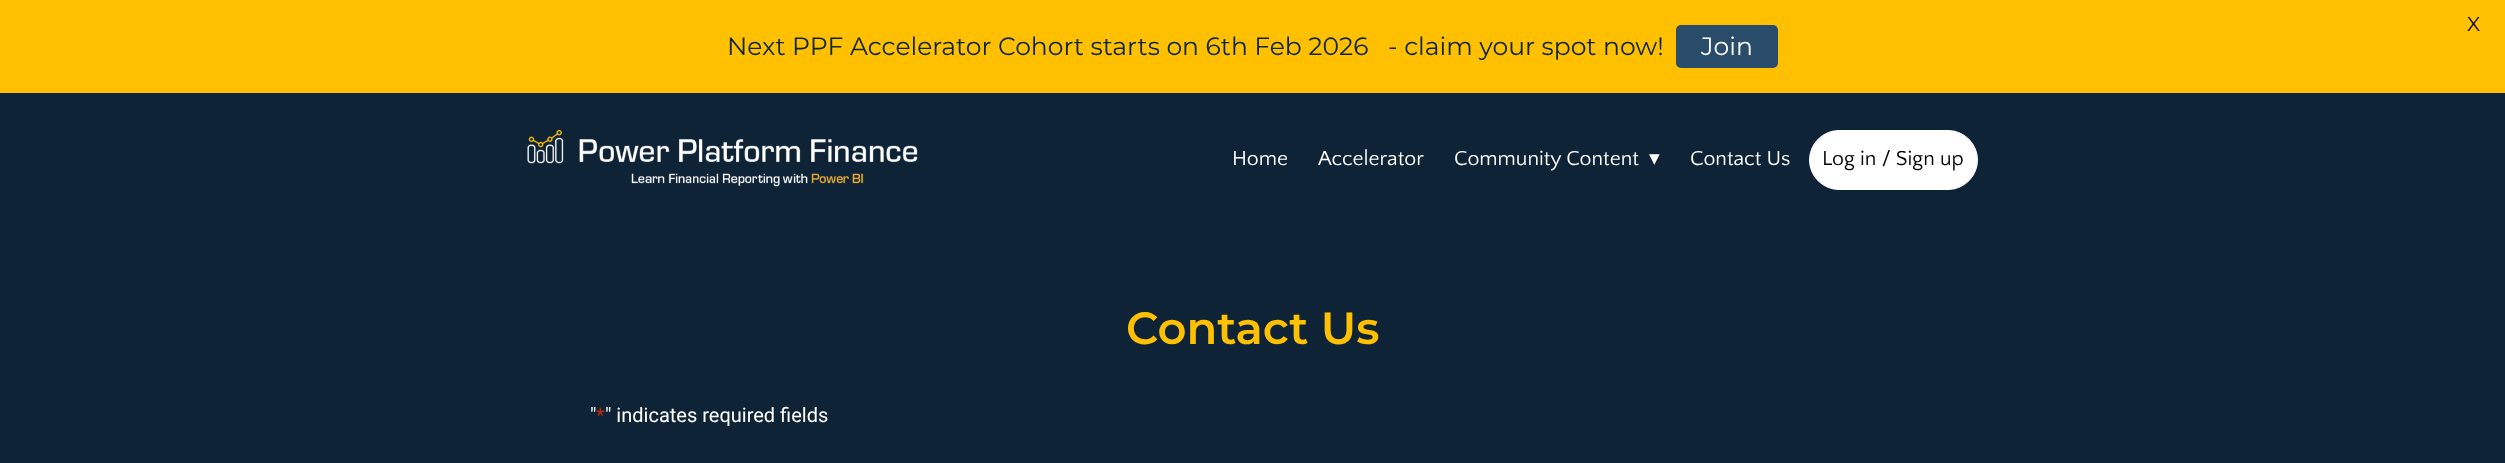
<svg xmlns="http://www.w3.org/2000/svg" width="2505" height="463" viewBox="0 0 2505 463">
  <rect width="100%" height="100%" fill="#0f2337"/>
  <rect x="0" y="0" width="2505" height="93" fill="#fec000"/>
  <text x="2467" y="31" font-family="Montserrat" font-size="20" fill="#000000">X</text>
  <text x="727" y="55" font-family="Montserrat" font-size="25" fill="#0c2434" xml:space="preserve">Next PPF Accelerator Cohort starts on 6th Feb 2026   - claim your spot now!</text>
  <rect x="1676" y="25" width="102" height="43" rx="5" fill="#284c69"/>
  <text x="1701" y="55" font-family="Montserrat" font-size="25" fill="#ffffff">Join</text>
  <image x="527" y="130" width="391" height="57" href="img1.png"/>
  <text x="1232" y="165" font-family="Quattrocento Sans" font-size="21.25" fill="#ffffff">Home</text>
  <text x="1318" y="165" font-family="Quattrocento Sans" font-size="21.25" fill="#ffffff">Accelerator</text>
  <text x="1454" y="165" font-family="Quattrocento Sans" font-size="21.25" fill="#ffffff">Community Content</text>
  <text x="1649" y="165" font-family="DejaVu Sans" font-size="21.25" fill="#ffffff">▾</text>
  <text x="1690" y="165" font-family="Quattrocento Sans" font-size="21.25" fill="#ffffff">Contact Us</text>
  <rect x="1809.5" y="130.5" width="168" height="59" rx="29.5" fill="#ffffff" stroke="#ffffff"/>
  <text x="1822" y="165" font-family="Quattrocento Sans" font-size="21.25" fill="#000000">Log in / Sign up</text>
  <text x="1126" y="344" font-family="Montserrat" font-size="45" font-weight="100" fill="#fec002">Contact Us</text>
  <text x="590" y="422" font-family="Roboto" font-size="20" fill="#ffffff">"</text>
  <text x="596" y="422" font-family="Roboto" font-size="20" fill="#c02b0a">*</text>
  <text x="605" y="422" font-family="Roboto" font-size="20" fill="#ffffff">" indicates required fields</text>
</svg>
